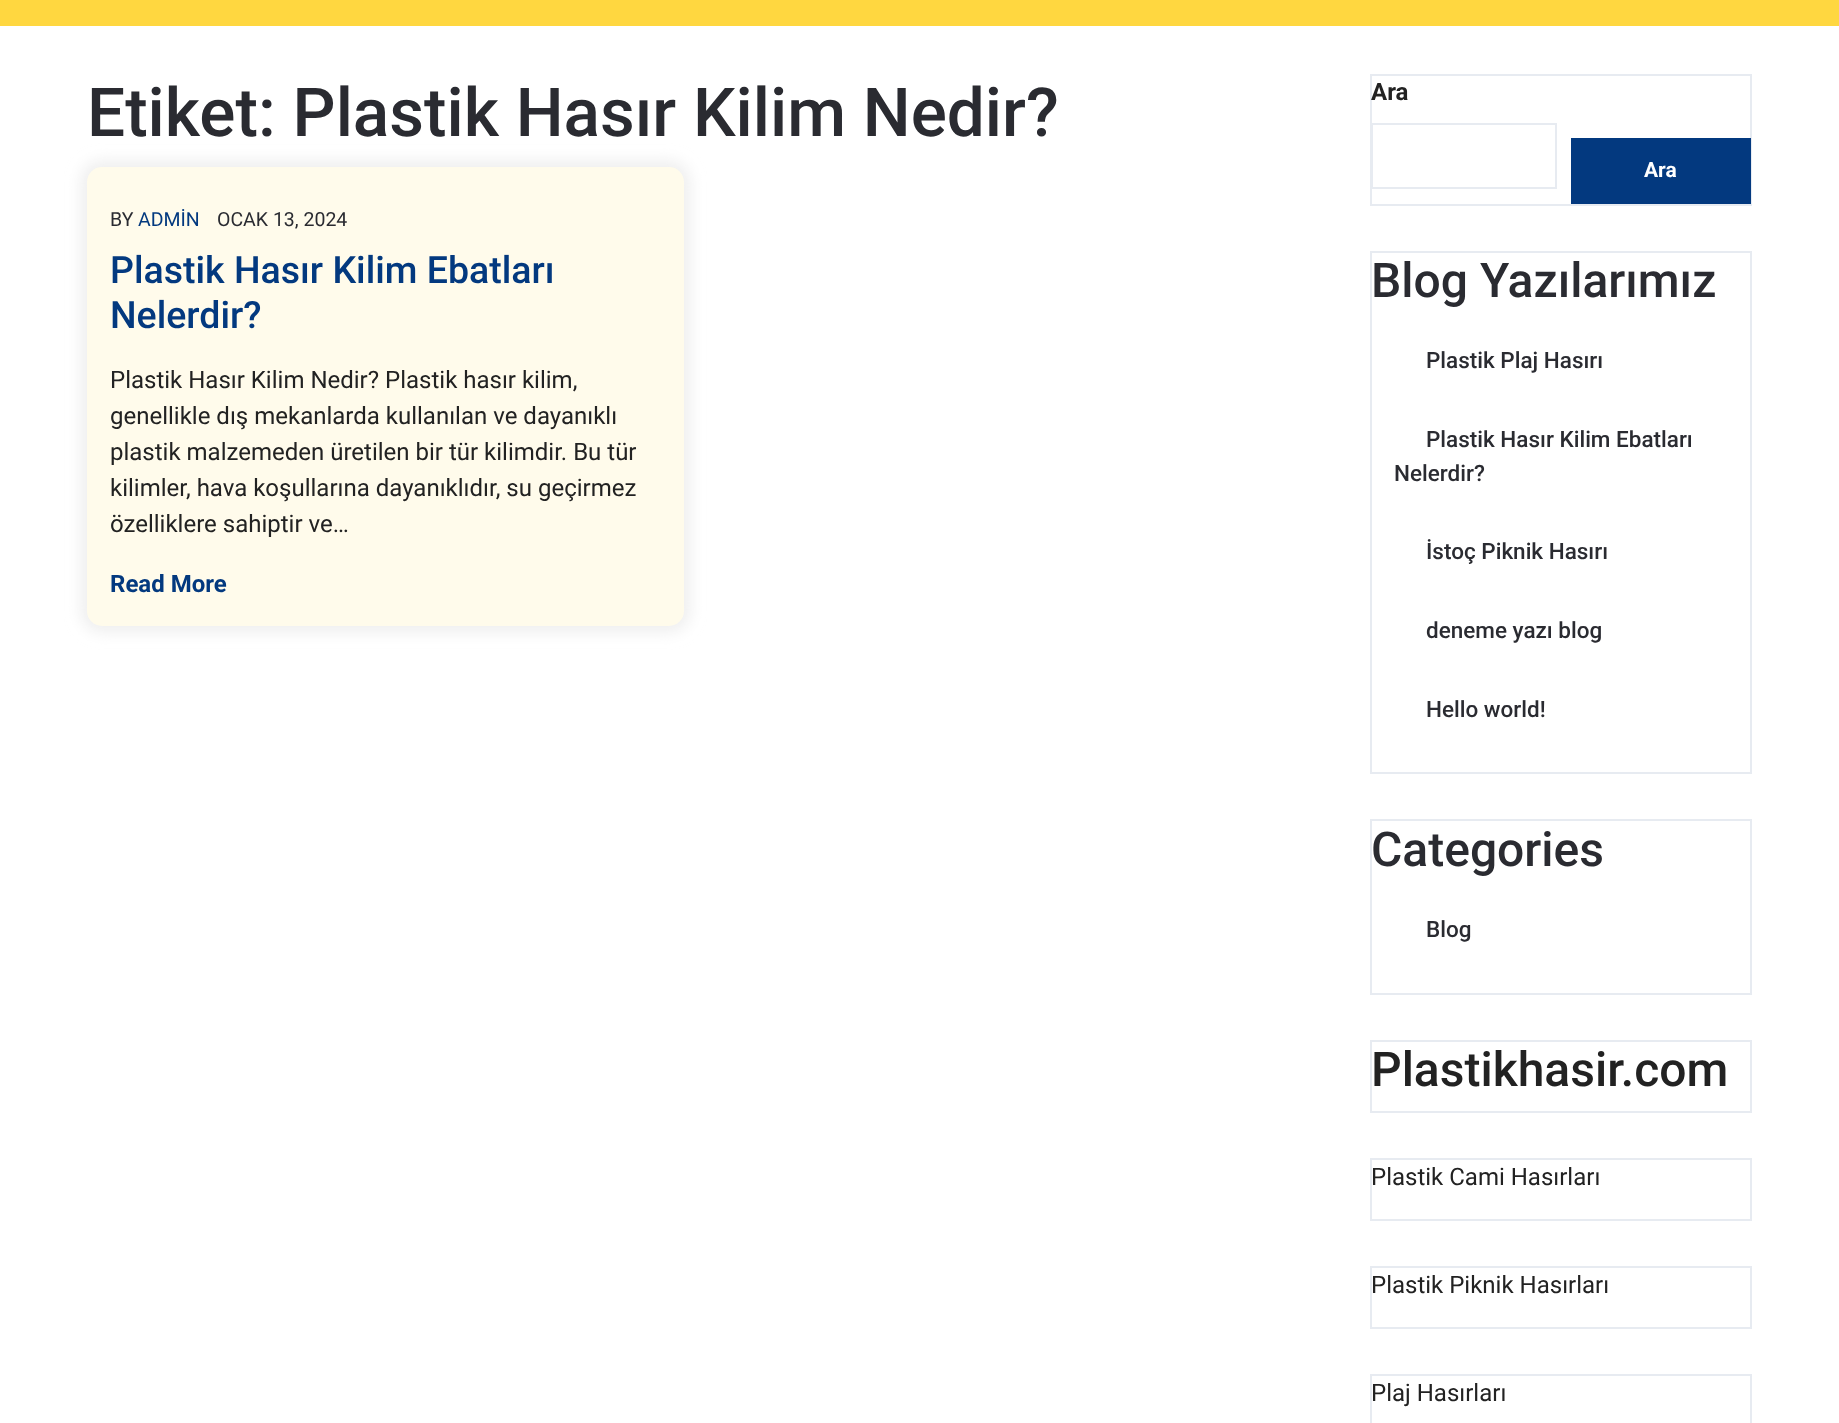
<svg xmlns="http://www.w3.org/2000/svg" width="1839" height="1423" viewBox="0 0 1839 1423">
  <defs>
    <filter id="blur1" x="-50%" y="-200%" width="200%" height="500%"><feGaussianBlur stdDeviation="7.5"/></filter>
  </defs>
  <rect width="100%" height="100%" fill="#ffffff"/>
  <rect x="0" y="0" width="1839" height="26" fill="#ffd740"/>
  <text x="87" y="136" font-family="Roboto" font-size="67.5" font-weight="500" fill="#2a2b31">Etiket: Plastik Hasır Kilim Nedir?</text>
  <rect x="81" y="161" width="609" height="471" rx="21" fill="#eeeeee" filter="url(#blur1)"/>
  <rect x="87" y="167" width="597" height="459" rx="15" fill="#fffbeb"/>
  <text x="110" y="226" font-family="Roboto" font-size="19.5" fill="#2a2b31">BY</text>
  <text x="138" y="226" font-family="Roboto" font-size="19.5" fill="#03397f">ADMİN</text>
  <text x="217" y="226" font-family="Roboto" font-size="19.5" fill="#2a2b31">OCAK 13, 2024</text>
  <text x="110" y="283" font-family="Roboto" font-size="37.5" font-weight="500" fill="#03397f">Plastik Hasır Kilim Ebatları</text>
  <text x="110" y="328" font-family="Roboto" font-size="37.5" font-weight="500" fill="#03397f">Nelerdir?</text>
  <text x="110" y="388" font-family="Roboto" font-size="24" fill="#222222">Plastik Hasır Kilim Nedir? Plastik hasır kilim,</text>
  <text x="110" y="424" font-family="Roboto" font-size="24" fill="#222222">genellikle dış mekanlarda kullanılan ve dayanıklı</text>
  <text x="110" y="460" font-family="Roboto" font-size="24" fill="#222222">plastik malzemeden üretilen bir tür kilimdir. Bu tür</text>
  <text x="110" y="496" font-family="Roboto" font-size="24" fill="#222222">kilimler, hava koşullarına dayanıklıdır, su geçirmez</text>
  <text x="110" y="532" font-family="Roboto" font-size="24" fill="#222222">özelliklere sahiptir ve…</text>
  <text x="110" y="592" font-family="Roboto" font-size="24" font-weight="bold" fill="#03397f">Read More</text>
  <rect x="1371" y="75" width="380" height="130" fill="none" stroke="#e7ebf1" stroke-width="2"/>
  <text x="1371" y="100" font-family="Roboto" font-size="24" font-weight="bold" fill="#222222">Ara</text>
  <rect x="1372" y="124" width="184" height="64" fill="none" stroke="#e7ebf1" stroke-width="2"/>
  <rect x="1571" y="138" width="180" height="66" fill="#03397f"/>
  <text x="1644" y="177" font-family="Roboto" font-size="21" font-weight="bold" fill="#ffffff">Ara</text>
  <rect x="1371" y="252" width="380" height="521" fill="none" stroke="#e7ebf1" stroke-width="2"/>
  <text x="1371" y="297" font-family="Roboto" font-size="48" font-weight="500" fill="#2a2b31">Blog Yazılarımız</text>
  <text x="1426" y="368" font-family="Roboto" font-size="22.5" font-weight="500" fill="#2a2b31">Plastik Plaj Hasırı</text>
  <text x="1426" y="447" font-family="Roboto" font-size="22.5" font-weight="500" fill="#2a2b31">Plastik Hasır Kilim Ebatları</text>
  <text x="1394" y="481" font-family="Roboto" font-size="22.5" font-weight="500" fill="#2a2b31">Nelerdir?</text>
  <text x="1426" y="559" font-family="Roboto" font-size="22.5" font-weight="500" fill="#2a2b31">İstoç Piknik Hasırı</text>
  <text x="1426" y="638" font-family="Roboto" font-size="22.5" font-weight="500" fill="#2a2b31">deneme yazı blog</text>
  <text x="1426" y="717" font-family="Roboto" font-size="22.5" font-weight="500" fill="#2a2b31">Hello world!</text>
  <rect x="1371" y="820" width="380" height="174" fill="none" stroke="#e7ebf1" stroke-width="2"/>
  <text x="1371" y="866" font-family="Roboto" font-size="48" font-weight="500" fill="#2a2b31">Categories</text>
  <text x="1426" y="937" font-family="Roboto" font-size="22.5" font-weight="500" fill="#2a2b31">Blog</text>
  <rect x="1371" y="1041" width="380" height="71" fill="none" stroke="#e7ebf1" stroke-width="2"/>
  <text x="1371" y="1086" font-family="Roboto" font-size="48" font-weight="500" fill="#222222">Plastikhasir.com</text>
  <rect x="1371" y="1159" width="380" height="61" fill="none" stroke="#e7ebf1" stroke-width="2"/>
  <text x="1371" y="1185" font-family="Roboto" font-size="24" fill="#222222">Plastik Cami Hasırları</text>
  <rect x="1371" y="1267" width="380" height="61" fill="none" stroke="#e7ebf1" stroke-width="2"/>
  <text x="1371" y="1293" font-family="Roboto" font-size="24" fill="#222222">Plastik Piknik Hasırları</text>
  <rect x="1371" y="1375" width="380" height="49" fill="none" stroke="#e7ebf1" stroke-width="2"/>
  <text x="1371" y="1401" font-family="Roboto" font-size="24" fill="#222222">Plaj Hasırları</text>
</svg>
